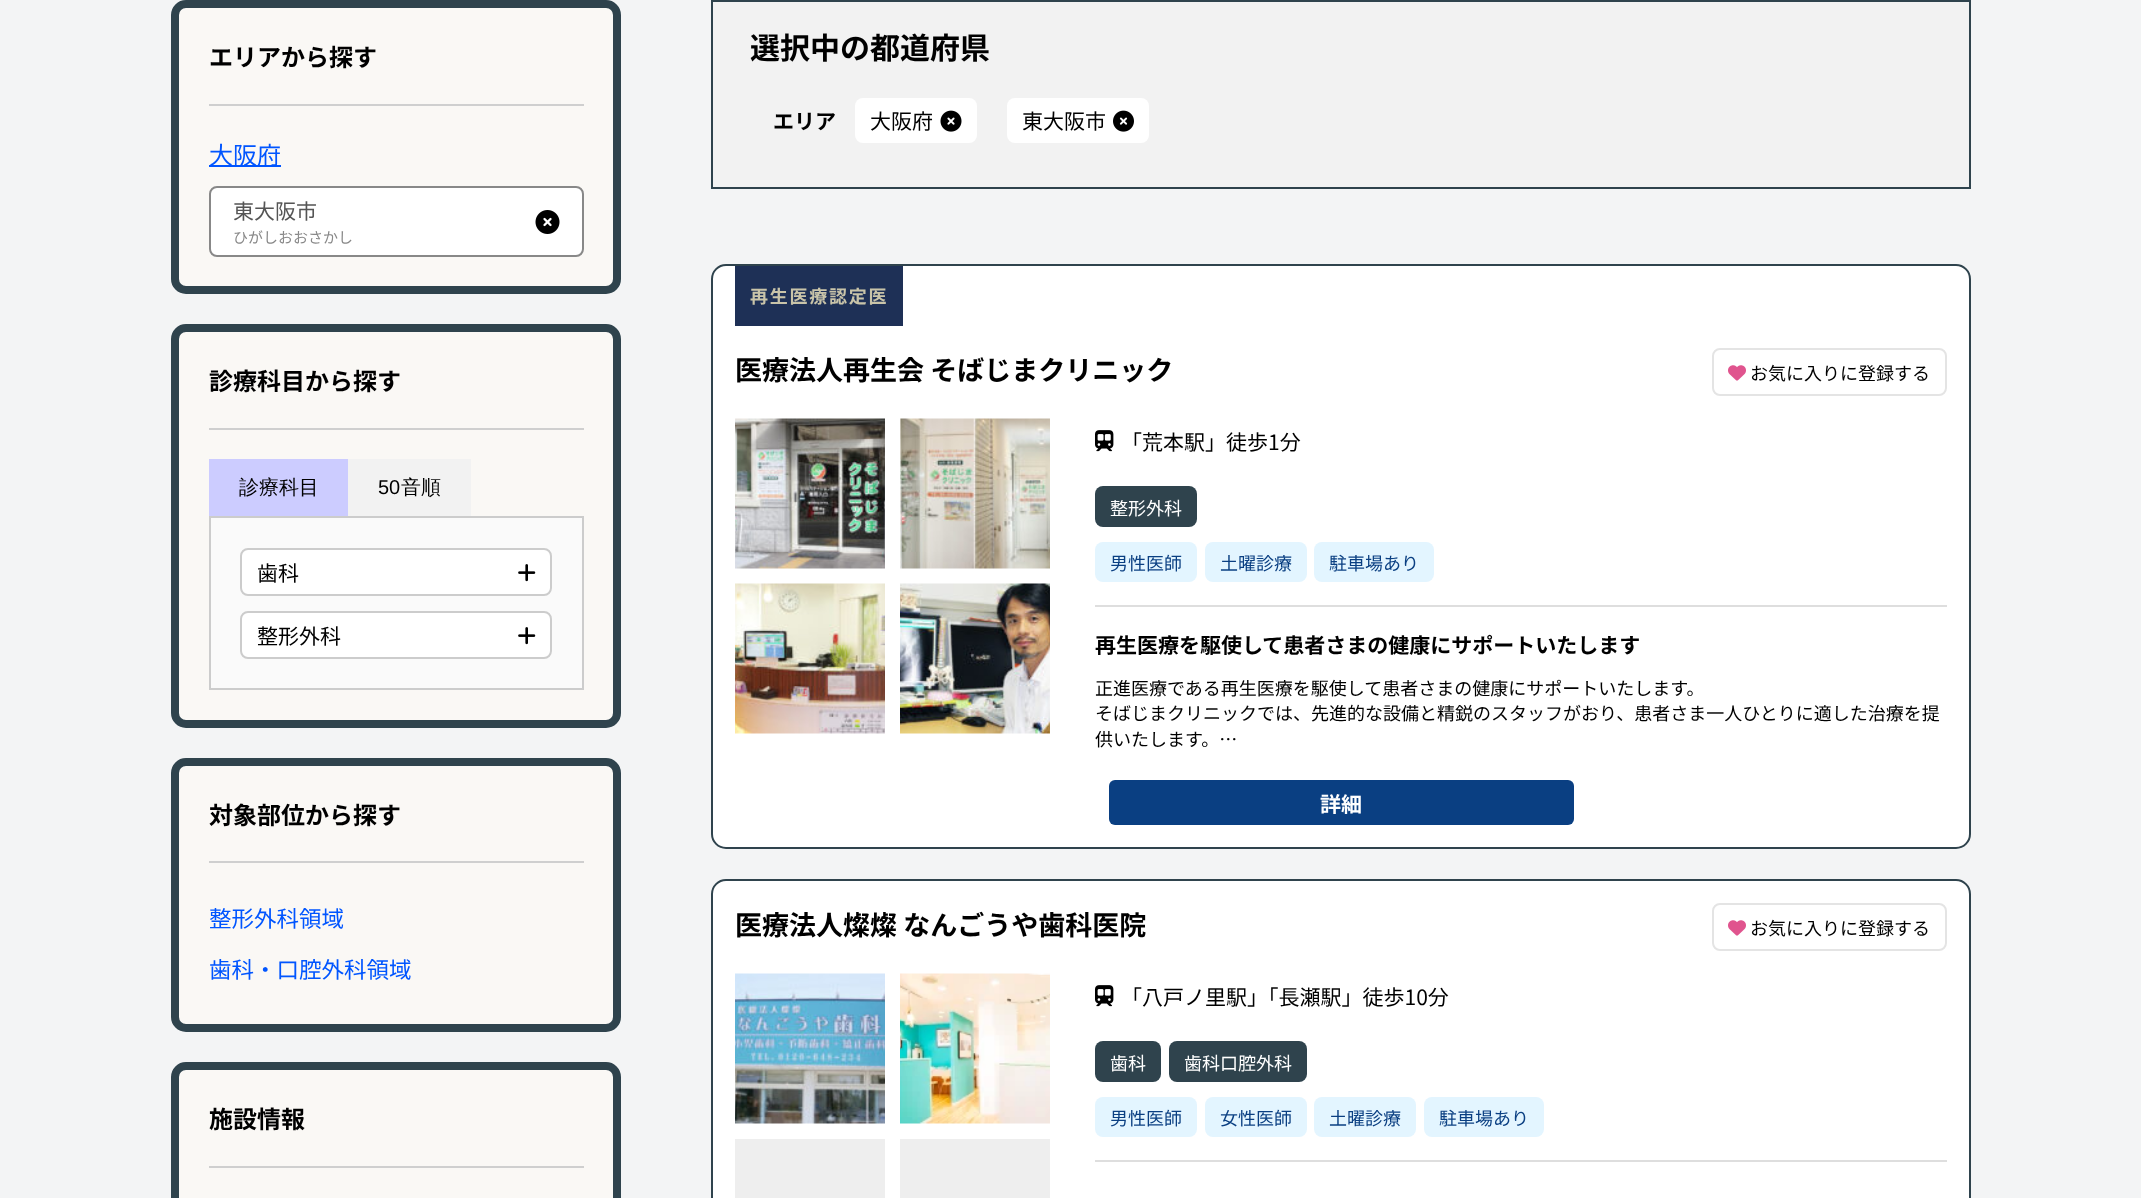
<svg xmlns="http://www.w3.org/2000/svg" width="2141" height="1198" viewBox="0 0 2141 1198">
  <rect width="100%" height="100%" fill="#f3f4f5"/>
  <rect x="175" y="4" width="442" height="286" rx="11" fill="#faf8f5" stroke="#2f434d" stroke-width="8"/>
  <rect x="209" y="104" width="375" height="2" fill="#cfcfcf"/>
  <text x="209" y="66" font-family="Noto Sans JP" font-size="24" font-weight="bold" fill="#000000">エリアから探す</text>
  <rect x="209" y="165" width="72" height="2" fill="#0055ff"/>
  <text x="209" y="164" font-family="Noto Sans JP" font-size="24" fill="#0055ff">大阪府</text>
  <rect x="210" y="187" width="373" height="69" rx="7" fill="#ffffff" stroke="#888888" stroke-width="2"/>
  <text x="233" y="219" font-family="Noto Sans JP" font-size="21" fill="#555555">東大阪市</text>
  <text x="233" y="243" font-family="Noto Sans JP" font-size="15" fill="#888888">ひがしおおさかし</text>
  <image x="535" y="210" width="25" height="24" href="img1.png"/>
  <rect x="175" y="328" width="442" height="396" rx="11" fill="#faf8f5" stroke="#2f434d" stroke-width="8"/>
  <rect x="209" y="428" width="375" height="2" fill="#cfcfcf"/>
  <text x="209" y="390" font-family="Noto Sans JP" font-size="24" font-weight="bold" fill="#000000">診療科目から探す</text>
  <rect x="209" y="459" width="139" height="57" fill="#ccccff"/>
  <text x="239" y="494" font-family="WenQuanYi Zen Hei" font-size="20" font-weight="500" fill="#000000">診療科目</text>
  <rect x="348" y="459" width="123" height="57" fill="#f2f2f2"/>
  <text x="378" y="494" font-family="Liberation Sans" font-size="20" fill="#000000">50</text>
  <text x="401" y="494" font-family="WenQuanYi Zen Hei" font-size="20" font-weight="500" fill="#000000">音順</text>
  <rect x="210" y="517" width="373" height="172" fill="#fafafa" stroke="#cccccc" stroke-width="2"/>
  <rect x="241" y="549" width="310" height="46" rx="7" fill="#ffffff" stroke="#cccccc" stroke-width="2"/>
  <text x="257" y="581" font-family="Noto Sans JP" font-size="21" fill="#000000">歯科</text>
  <image x="518" y="564" width="18" height="18" href="img2.png"/>
  <rect x="241" y="612" width="310" height="46" rx="7" fill="#ffffff" stroke="#cccccc" stroke-width="2"/>
  <text x="257" y="644" font-family="Noto Sans JP" font-size="21" fill="#000000">整形外科</text>
  <image x="518" y="627" width="18" height="18" href="img2.png"/>
  <rect x="175" y="762" width="442" height="266" rx="11" fill="#faf8f5" stroke="#2f434d" stroke-width="8"/>
  <rect x="209" y="861" width="375" height="2" fill="#cfcfcf"/>
  <text x="209" y="824" font-family="Noto Sans JP" font-size="24" font-weight="bold" fill="#000000">対象部位から探す</text>
  <text x="209" y="927" font-family="Noto Sans JP" font-size="22.5" fill="#0055ff">整形外科領域</text>
  <text x="209" y="978" font-family="Noto Sans JP" font-size="22.5" fill="#0055ff">歯科・口腔外科領域</text>
  <rect x="175" y="1066" width="442" height="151" rx="11" fill="#faf8f5" stroke="#2f434d" stroke-width="8"/>
  <rect x="209" y="1166" width="375" height="2" fill="#cfcfcf"/>
  <text x="209" y="1128" font-family="Noto Sans JP" font-size="24" font-weight="bold" fill="#000000">施設情報</text>
  <rect x="712" y="1" width="1258" height="187" fill="#f2f2f2" stroke="#2f434d" stroke-width="2"/>
  <text x="750" y="59" font-family="Noto Sans JP" font-size="30" font-weight="bold" fill="#000000">選択中の都道府県</text>
  <text x="773" y="129" font-family="Noto Sans JP" font-size="21" font-weight="bold" fill="#000000">エリア</text>
  <rect x="855" y="98" width="122" height="45" rx="8" fill="#ffffff"/>
  <text x="870" y="129" font-family="Noto Sans JP" font-size="21" fill="#000000">大阪府</text>
  <image x="940" y="110" width="22" height="22" href="img3.png"/>
  <rect x="1007" y="98" width="142" height="45" rx="8" fill="#ffffff"/>
  <text x="1022" y="129" font-family="Noto Sans JP" font-size="21" fill="#000000">東大阪市</text>
  <image x="1113" y="110" width="21" height="22" href="img4.png"/>
  <rect x="712" y="265" width="1258" height="583" rx="14" fill="#ffffff" stroke="#2f434d" stroke-width="2"/>
  <rect x="735" y="266" width="168" height="60" fill="#1e3056"/>
  <text x="750" y="303" font-family="Noto Sans JP" font-size="18" font-weight="bold" letter-spacing="1.75" fill="#c9c4a9">再生医療認定医</text>
  <text x="735" y="380" font-family="Noto Sans JP" font-size="27" font-weight="bold" fill="#000000">医療法人再生会 そばじまクリニック</text>
  <rect x="1713" y="349" width="233" height="46" rx="7" fill="none" stroke="#e4e4e4" stroke-width="2"/>
  <image x="1728" y="365" width="18" height="16" href="img5.png"/>
  <text x="1750" y="380" font-family="Noto Sans JP" font-size="18" fill="#000000">お気に入りに登録する</text>
  <image x="735" y="418" width="150" height="151" href="img6.png"/>
  <image x="900" y="418" width="150" height="151" href="img7.png"/>
  <image x="735" y="583" width="150" height="151" href="img8.png"/>
  <image x="900" y="583" width="150" height="151" href="img9.png"/>
  <image x="1095" y="430" width="19" height="22" href="img10.png"/>
  <text x="1121" y="450" font-family="Noto Sans JP" font-size="21" fill="#000000">「荒本駅」徒歩1分</text>
  <rect x="1095" y="486" width="102" height="41" rx="8" fill="#2f434d"/>
  <text x="1110" y="515" font-family="Noto Sans JP" font-size="18" fill="#ffffff">整形外科</text>
  <rect x="1095" y="542" width="102" height="40" rx="8" fill="#e3f5ff"/>
  <text x="1110" y="570" font-family="Noto Sans JP" font-size="18" fill="#0a3f82">男性医師</text>
  <rect x="1205" y="542" width="102" height="40" rx="8" fill="#e3f5ff"/>
  <text x="1220" y="570" font-family="Noto Sans JP" font-size="18" fill="#0a3f82">土曜診療</text>
  <rect x="1314" y="542" width="120" height="40" rx="8" fill="#e3f5ff"/>
  <text x="1329" y="570" font-family="Noto Sans JP" font-size="18" fill="#0a3f82">駐車場あり</text>
  <rect x="1095" y="605" width="852" height="2" fill="#dedede"/>
  <text x="1095" y="653" font-family="Noto Sans JP" font-size="21" font-weight="bold" fill="#000000">再生医療を駆使して患者さまの健康にサポートいたします</text>
  <text x="1095" y="695" font-family="Noto Sans JP" font-size="18" fill="#000000">正進医療である再生医療を駆使して患者さまの健康にサポートいたします。</text>
  <text x="1095" y="720" font-family="Noto Sans JP" font-size="18" fill="#000000">そばじまクリニックでは、先進的な設備と精鋭のスタッフがおり、患者さま一人ひとりに適した治療を提</text>
  <text x="1095" y="746" font-family="Noto Sans JP" font-size="18" fill="#000000">供いたします。…</text>
  <rect x="1109" y="780" width="465" height="45" rx="6" fill="#0a3f82"/>
  <text x="1320" y="812" font-family="Noto Sans JP" font-size="21" font-weight="bold" fill="#ffffff">詳細</text>
  <rect x="712" y="880" width="1258" height="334" rx="14" fill="#ffffff" stroke="#2f434d" stroke-width="2"/>
  <text x="735" y="935" font-family="Noto Sans JP" font-size="27" font-weight="bold" fill="#000000">医療法人燦燦 なんごうや歯科医院</text>
  <rect x="1713" y="904" width="233" height="46" rx="7" fill="none" stroke="#e4e4e4" stroke-width="2"/>
  <image x="1728" y="920" width="18" height="16" href="img5.png"/>
  <text x="1750" y="935" font-family="Noto Sans JP" font-size="18" fill="#000000">お気に入りに登録する</text>
  <image x="735" y="973" width="150" height="151" href="img11.png"/>
  <image x="900" y="973" width="150" height="151" href="img12.png"/>
  <rect x="735" y="1139" width="150" height="59" fill="#eeeeee"/>
  <rect x="900" y="1139" width="150" height="59" fill="#eeeeee"/>
  <image x="1095" y="985" width="19" height="22" href="img10.png"/>
  <text x="1121" y="1005" font-family="Noto Sans JP" font-size="21" fill="#000000">「八戸ノ里駅」「長瀬駅」徒歩10分</text>
  <rect x="1095" y="1041" width="66" height="41" rx="8" fill="#2f434d"/>
  <text x="1110" y="1070" font-family="Noto Sans JP" font-size="18" fill="#ffffff">歯科</text>
  <rect x="1169" y="1041" width="138" height="41" rx="8" fill="#2f434d"/>
  <text x="1184" y="1070" font-family="Noto Sans JP" font-size="18" fill="#ffffff">歯科口腔外科</text>
  <rect x="1095" y="1097" width="102" height="40" rx="8" fill="#e3f5ff"/>
  <text x="1110" y="1125" font-family="Noto Sans JP" font-size="18" fill="#0a3f82">男性医師</text>
  <rect x="1205" y="1097" width="102" height="40" rx="8" fill="#e3f5ff"/>
  <text x="1220" y="1125" font-family="Noto Sans JP" font-size="18" fill="#0a3f82">女性医師</text>
  <rect x="1314" y="1097" width="102" height="40" rx="8" fill="#e3f5ff"/>
  <text x="1329" y="1125" font-family="Noto Sans JP" font-size="18" fill="#0a3f82">土曜診療</text>
  <rect x="1424" y="1097" width="120" height="40" rx="8" fill="#e3f5ff"/>
  <text x="1439" y="1125" font-family="Noto Sans JP" font-size="18" fill="#0a3f82">駐車場あり</text>
  <rect x="1095" y="1160" width="852" height="2" fill="#dedede"/>
</svg>
